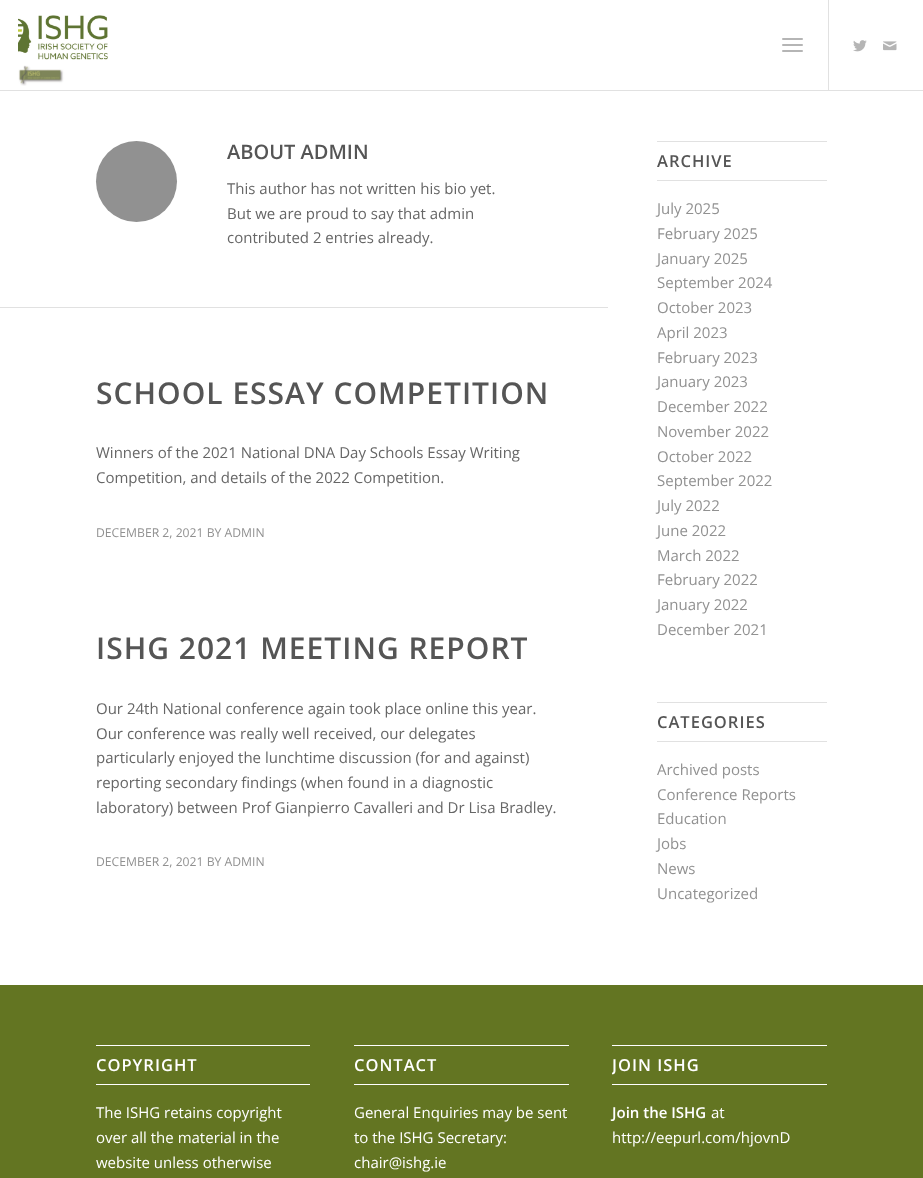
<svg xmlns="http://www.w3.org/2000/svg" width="923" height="1178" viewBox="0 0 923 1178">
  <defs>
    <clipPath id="clip1"><rect x="612" y="1031" width="215" height="132"/></clipPath>
  </defs>
  <rect width="100%" height="100%" fill="#ffffff"/>
  <rect x="0" y="90" width="923" height="1" fill="#e1e1e1"/>
  <image x="18" y="15" width="90" height="71" href="img1.png"/>
  <rect x="828" y="0" width="1" height="90" fill="#e1e1e1"/>
  <rect x="782" y="44" width="21" height="2" rx="1" fill="#b5b5b5"/>
  <rect x="782" y="38" width="21" height="2" rx="1" fill="#b5b5b5"/>
  <rect x="782" y="50" width="21" height="2" rx="1" fill="#b5b5b5"/>
  <image x="853" y="40" width="14" height="12" href="img2.png"/>
  <image x="883" y="41" width="14" height="10" href="img3.png"/>
  <circle cx="136.5" cy="181.5" r="40.5" fill="#919191"/>
  <text x="227" y="159" font-family="Open Sans" font-size="20" font-weight="600" fill="#555555">ABOUT ADMIN</text>
  <text x="227" y="194" font-family="Open Sans" font-size="15" fill="#666666">This author has not written his bio yet.</text>
  <text x="227" y="219" font-family="Open Sans" font-size="15" fill="#666666">But we are proud to say that admin</text>
  <text x="227" y="243" font-family="Open Sans" font-size="15" fill="#666666">contributed 2 entries already.</text>
  <rect x="0" y="307" width="608" height="1" fill="#e1e1e1"/>
  <text x="96" y="404" font-family="Open Sans" font-size="30" font-weight="600" letter-spacing="1" fill="#555555">SCHOOL ESSAY COMPETITION</text>
  <text x="96" y="458" font-family="Open Sans" font-size="15" fill="#666666">Winners of the 2021 National DNA Day Schools Essay Writing</text>
  <text x="96" y="483" font-family="Open Sans" font-size="15" fill="#666666">Competition, and details of the 2022 Competition.</text>
  <text x="96" y="537" font-family="Open Sans" font-size="12.2" fill="#919191">DECEMBER 2, 2021 BY ADMIN</text>
  <text x="96" y="659" font-family="Open Sans" font-size="30" font-weight="600" letter-spacing="1" fill="#555555">ISHG 2021 MEETING REPORT</text>
  <text x="96" y="714" font-family="Open Sans" font-size="15" fill="#666666">Our 24th National conference again took place online this year.</text>
  <text x="96" y="739" font-family="Open Sans" font-size="15" fill="#666666">Our conference was really well received, our delegates</text>
  <text x="96" y="763" font-family="Open Sans" font-size="15" fill="#666666">particularly enjoyed the lunchtime discussion (for and against)</text>
  <text x="96" y="788" font-family="Open Sans" font-size="15" fill="#666666">reporting secondary findings (when found in a diagnostic</text>
  <text x="96" y="813" font-family="Open Sans" font-size="15" fill="#666666">laboratory) between Prof Gianpierro Cavalleri and Dr Lisa Bradley.</text>
  <text x="96" y="866" font-family="Open Sans" font-size="12.2" fill="#919191">DECEMBER 2, 2021 BY ADMIN</text>
  <rect x="657" y="141" width="170" height="1" fill="#e1e1e1"/>
  <rect x="657" y="180" width="170" height="1" fill="#e1e1e1"/>
  <text x="657" y="167" font-family="Open Sans" font-size="16.5" font-weight="600" letter-spacing="1" fill="#555555">ARCHIVE</text>
  <text x="657" y="214" font-family="Open Sans" font-size="15" fill="#919191">July 2025</text>
  <text x="657" y="239" font-family="Open Sans" font-size="15" fill="#919191">February 2025</text>
  <text x="657" y="264" font-family="Open Sans" font-size="15" fill="#919191">January 2025</text>
  <text x="657" y="288" font-family="Open Sans" font-size="15" fill="#919191">September 2024</text>
  <text x="657" y="313" font-family="Open Sans" font-size="15" fill="#919191">October 2023</text>
  <text x="657" y="338" font-family="Open Sans" font-size="15" fill="#919191">April 2023</text>
  <text x="657" y="363" font-family="Open Sans" font-size="15" fill="#919191">February 2023</text>
  <text x="657" y="387" font-family="Open Sans" font-size="15" fill="#919191">January 2023</text>
  <text x="657" y="412" font-family="Open Sans" font-size="15" fill="#919191">December 2022</text>
  <text x="657" y="437" font-family="Open Sans" font-size="15" fill="#919191">November 2022</text>
  <text x="657" y="462" font-family="Open Sans" font-size="15" fill="#919191">October 2022</text>
  <text x="657" y="486" font-family="Open Sans" font-size="15" fill="#919191">September 2022</text>
  <text x="657" y="511" font-family="Open Sans" font-size="15" fill="#919191">July 2022</text>
  <text x="657" y="536" font-family="Open Sans" font-size="15" fill="#919191">June 2022</text>
  <text x="657" y="561" font-family="Open Sans" font-size="15" fill="#919191">March 2022</text>
  <text x="657" y="585" font-family="Open Sans" font-size="15" fill="#919191">February 2022</text>
  <text x="657" y="610" font-family="Open Sans" font-size="15" fill="#919191">January 2022</text>
  <text x="657" y="635" font-family="Open Sans" font-size="15" fill="#919191">December 2021</text>
  <rect x="657" y="702" width="170" height="1" fill="#e1e1e1"/>
  <rect x="657" y="741" width="170" height="1" fill="#e1e1e1"/>
  <text x="657" y="728" font-family="Open Sans" font-size="16.5" font-weight="600" letter-spacing="1" fill="#555555">CATEGORIES</text>
  <text x="657" y="775" font-family="Open Sans" font-size="15" fill="#919191">Archived posts</text>
  <text x="657" y="800" font-family="Open Sans" font-size="15" fill="#919191">Conference Reports</text>
  <text x="657" y="824" font-family="Open Sans" font-size="15" fill="#919191">Education</text>
  <text x="657" y="849" font-family="Open Sans" font-size="15" fill="#919191">Jobs</text>
  <text x="657" y="874" font-family="Open Sans" font-size="15" fill="#919191">News</text>
  <text x="657" y="899" font-family="Open Sans" font-size="15" fill="#919191">Uncategorized</text>
  <rect x="0" y="985" width="923" height="193" fill="#637522"/>
  <rect x="96" y="1045" width="214" height="1" fill="#ffffff"/>
  <rect x="96" y="1084" width="214" height="1" fill="#ffffff"/>
  <text x="96" y="1071" font-family="Open Sans" font-size="16.5" font-weight="600" letter-spacing="1" fill="#ffffff">COPYRIGHT</text>
  <text x="96" y="1118" font-family="Open Sans" font-size="15" fill="#ffffff">The ISHG retains copyright</text>
  <text x="96" y="1143" font-family="Open Sans" font-size="15" fill="#ffffff">over all the material in the</text>
  <text x="96" y="1168" font-family="Open Sans" font-size="15" fill="#ffffff">website unless otherwise</text>
  <rect x="354" y="1045" width="215" height="1" fill="#ffffff"/>
  <rect x="354" y="1084" width="215" height="1" fill="#ffffff"/>
  <text x="354" y="1071" font-family="Open Sans" font-size="16.5" font-weight="600" letter-spacing="1" fill="#ffffff">CONTACT</text>
  <text x="354" y="1118" font-family="Open Sans" font-size="15" fill="#ffffff">General Enquiries may be sent</text>
  <text x="354" y="1143" font-family="Open Sans" font-size="15" fill="#ffffff">to the ISHG Secretary:</text>
  <text x="354" y="1168" font-family="Open Sans" font-size="15" fill="#ffffff">chair@ishg.ie</text>
  <rect x="612" y="1045" width="215" height="1" fill="#ffffff"/>
  <rect x="612" y="1084" width="215" height="1" fill="#ffffff"/>
  <g clip-path="url(#clip1)">
    <text x="612" y="1071" font-family="Open Sans" font-size="16.5" font-weight="600" letter-spacing="1" fill="#ffffff">JOIN ISHG</text>
  </g>
  <text x="612" y="1118" font-family="Open Sans" font-size="15" font-weight="600" fill="#ffffff">Join the ISHG</text>
  <text x="711" y="1118" font-family="Open Sans" font-size="15" fill="#ffffff">at</text>
  <text x="612" y="1143" font-family="Open Sans" font-size="15" fill="#ffffff">http://eepurl.com/hjovnD</text>
</svg>
